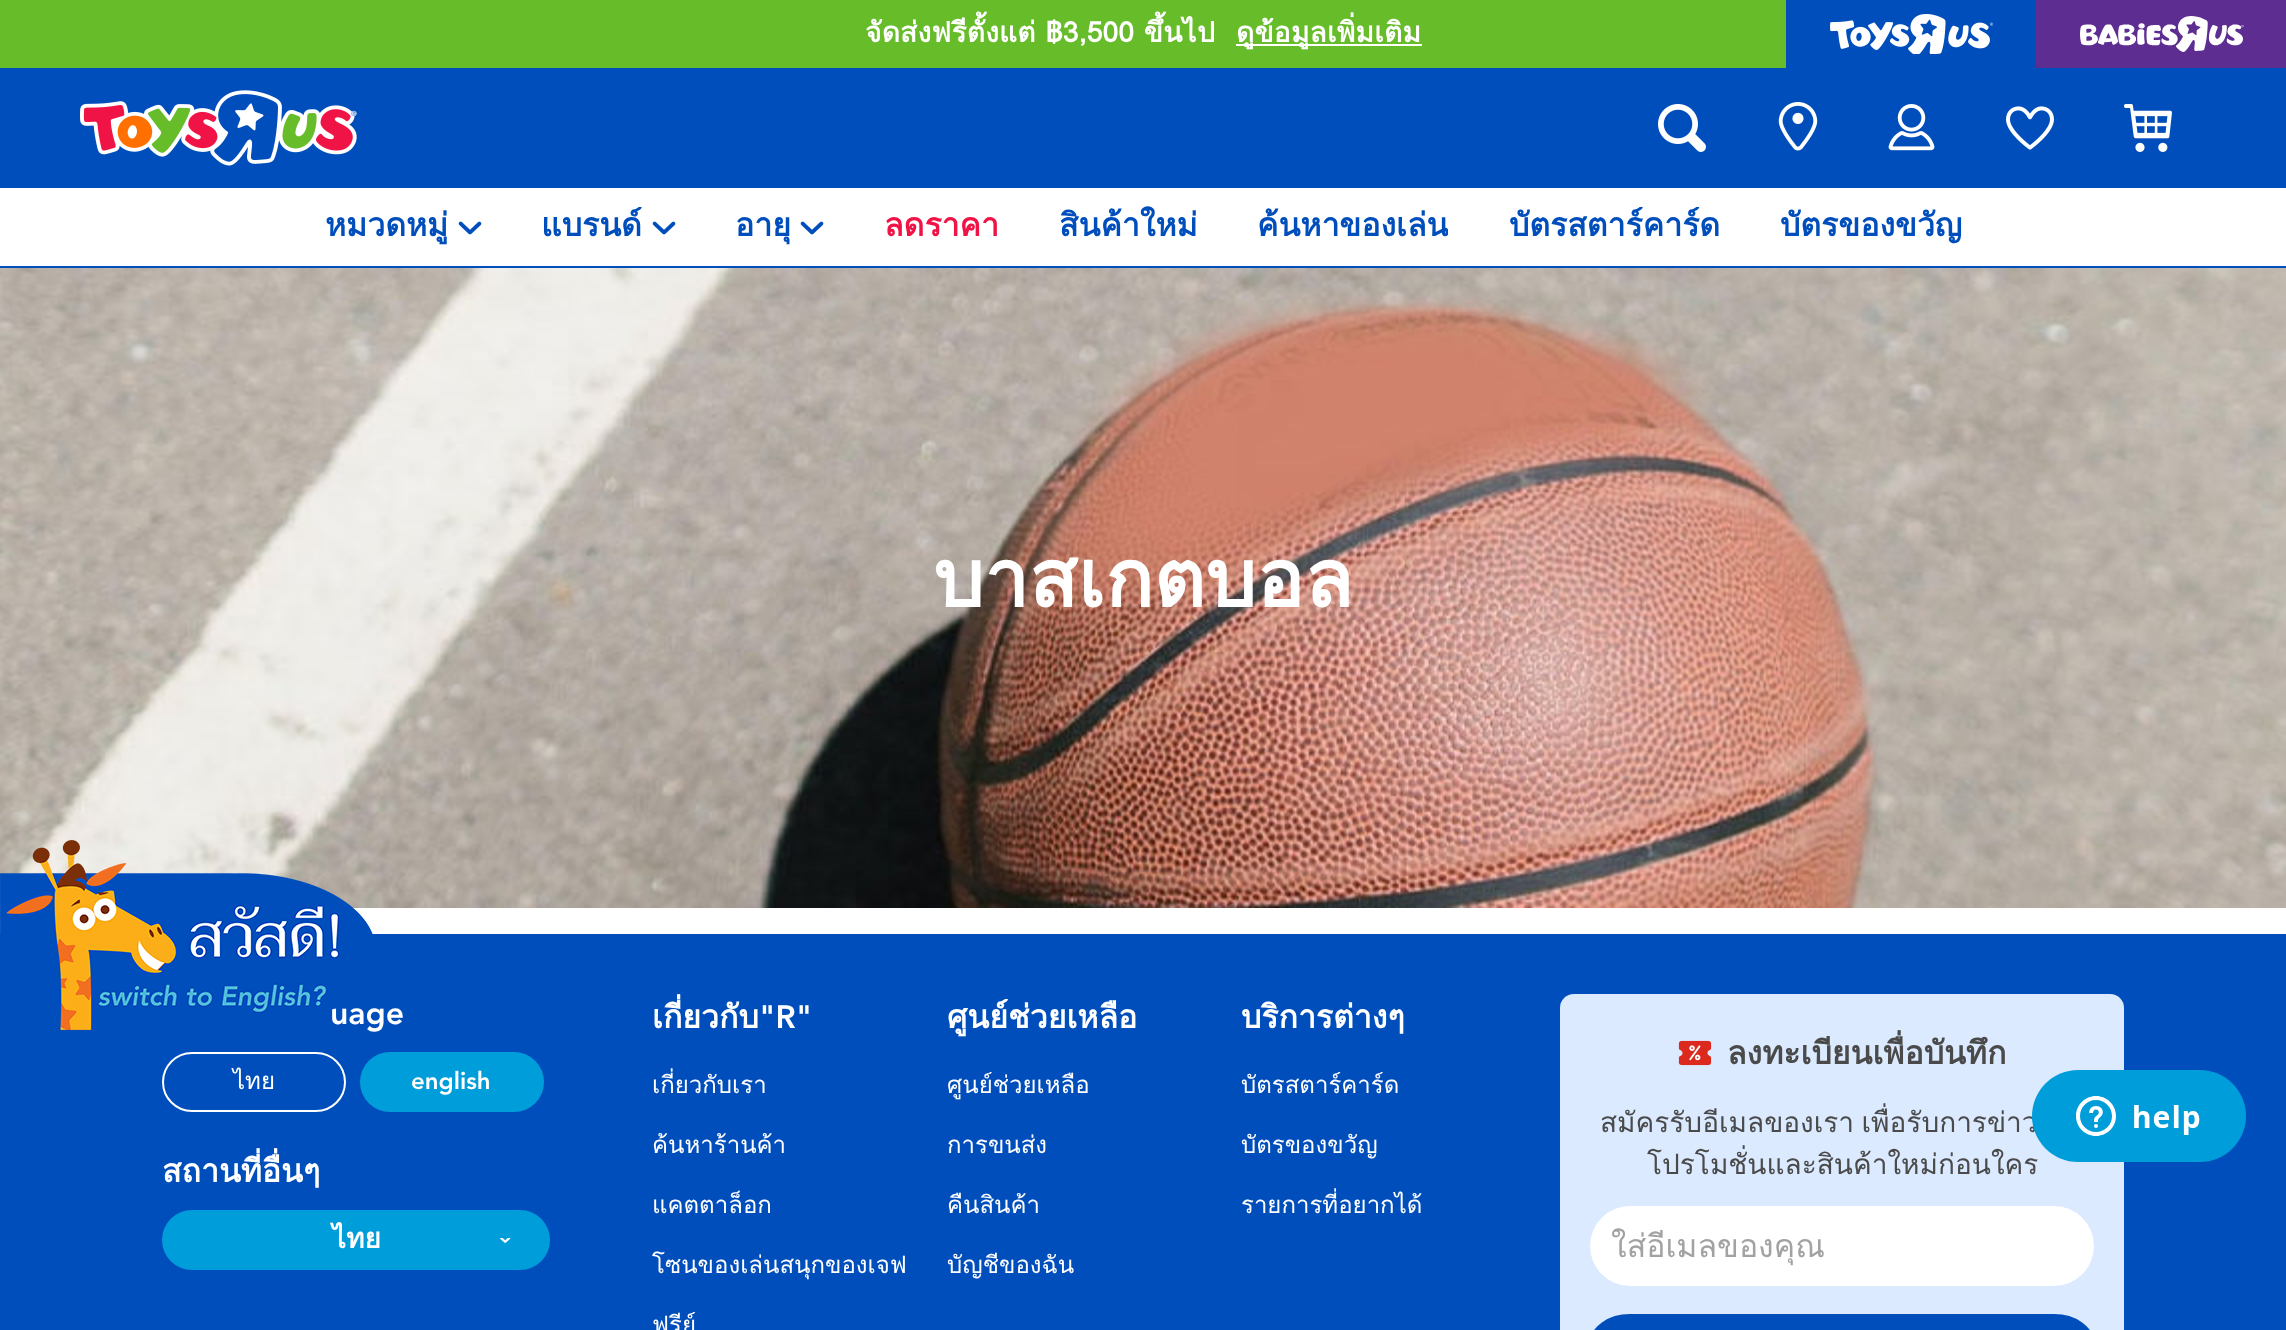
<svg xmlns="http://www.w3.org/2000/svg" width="2286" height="1330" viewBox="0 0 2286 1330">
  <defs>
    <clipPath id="clip1"><rect x="1060" y="188" width="138" height="74"/></clipPath>
    <clipPath id="clip2"><rect x="1258" y="188" width="190" height="74"/></clipPath>
    <clipPath id="clip3"><rect x="1508" y="188" width="212" height="74"/></clipPath>
    <clipPath id="clip4"><rect x="1780" y="188" width="182" height="74"/></clipPath>
  </defs>
  <rect width="100%" height="100%" fill="#ffffff"/>
  <rect x="0" y="0" width="1786" height="68" fill="#66bc29"/>
  <text x="865" y="42" font-family="Loma" font-size="28" font-weight="bold" letter-spacing="0.25" fill="#ffffff">จัดส่งฟรีตั้งแต่ ฿3,500 ขึ้นไป</text>
  <rect x="1236" y="44" width="186" height="2" fill="#ffffff"/>
  <text x="1236" y="42" font-family="Loma" font-size="28" font-weight="bold" letter-spacing="0.25" fill="#ffffff">ดูข้อมูลเพิ่มเติม</text>
  <rect x="1786" y="0" width="250" height="68" fill="#004ebc"/>
  <image x="1830" y="14" width="163" height="40" href="img1.png"/>
  <rect x="2036" y="0" width="250" height="68" fill="#5e2d91"/>
  <image x="2080" y="16" width="164" height="36" href="img2.png"/>
  <rect x="0" y="68" width="2286" height="200" fill="#004ebc"/>
  <image x="80" y="90" width="277" height="76" href="img3.png"/>
  <image x="1658" y="104" width="48" height="48" href="img4.png"/>
  <image x="1778" y="102" width="40" height="49" href="img5.png"/>
  <image x="1888" y="104" width="47" height="47" href="img6.png"/>
  <image x="2006" y="106" width="48" height="44" href="img7.png"/>
  <image x="2124" y="104" width="48" height="48" href="img8.png"/>
  <rect x="0" y="188" width="2286" height="78" fill="#ffffff"/>
  <text x="325" y="236" font-family="Loma" font-size="32" font-weight="bold" fill="#004ebc">หมวดหมู่</text>
  <image x="458" y="221" width="24" height="14" href="img9.png"/>
  <text x="541" y="236" font-family="Loma" font-size="32" font-weight="bold" fill="#004ebc">แบรนด์</text>
  <image x="652" y="221" width="24" height="14" href="img9.png"/>
  <text x="735" y="236" font-family="Loma" font-size="32" font-weight="bold" fill="#004ebc">อายุ</text>
  <image x="800" y="221" width="24" height="14" href="img9.png"/>
  <text x="884" y="236" font-family="Loma" font-size="32" font-weight="bold" fill="#f01446">ลดราคา</text>
  <g clip-path="url(#clip1)">
    <text x="1059" y="236" font-family="Loma" font-size="32" font-weight="bold" fill="#004ebc">สินค้าใหม่</text>
  </g>
  <g clip-path="url(#clip2)">
    <text x="1257" y="236" font-family="Loma" font-size="32" font-weight="bold" fill="#004ebc">ค้นหาของเล่น</text>
  </g>
  <g clip-path="url(#clip3)">
    <text x="1509" y="236" font-family="Loma" font-size="32" font-weight="bold" fill="#004ebc">บัตรสตาร์คาร์ด</text>
  </g>
  <g clip-path="url(#clip4)">
    <text x="1780" y="236" font-family="Loma" font-size="32" font-weight="bold" fill="#004ebc">บัตรของขวัญ</text>
  </g>
  <image x="0" y="268" width="2286" height="640" href="img10.png"/>
  <text x="933" y="607" font-family="Loma" font-size="80" font-weight="bold" fill="#ffffff">บาสเกตบอล</text>
  <rect x="0" y="934" width="2286" height="396" fill="#004ebc"/>
  <text x="330" y="1024" font-family="'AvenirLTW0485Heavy'" font-size="32" font-weight="900" fill="#ffffff">uage</text>
  <rect x="163" y="1053" width="182" height="58" rx="29" fill="none" stroke="#ffffff" stroke-width="2"/>
  <text x="233" y="1089" font-family="Loma" font-size="24" fill="#ffffff">ไทย</text>
  <rect x="360" y="1052" width="184" height="60" rx="30" fill="#009ddb"/>
  <text x="411" y="1089" font-family="'AvenirLTW0485Heavy'" font-size="24" font-weight="900" fill="#ffffff">english</text>
  <text x="162" y="1182" font-family="Loma" font-size="32" font-weight="bold" fill="#ffffff">สถานที่อื่นๆ</text>
  <rect x="162" y="1210" width="388" height="60" rx="30" fill="#009ddb"/>
  <text x="332" y="1248" font-family="Loma" font-size="28" font-weight="bold" fill="#ffffff">ไทย</text>
  <image x="500" y="1238" width="11" height="5" href="img11.png"/>
  <text x="652" y="1028" font-family="Loma" font-size="32" font-weight="bold" fill="#ffffff">เกี่ยวกับ</text>
  <text x="759" y="1028" font-family="'AvenirLTW0485Heavy'" font-size="32" font-weight="900" fill="#ffffff">"R"</text>
  <text x="652" y="1093" font-family="Loma" font-size="24" fill="#ffffff">เกี่ยวกับเรา</text>
  <text x="652" y="1153" font-family="Loma" font-size="24" fill="#ffffff">ค้นหาร้านค้า</text>
  <text x="652" y="1213" font-family="Loma" font-size="24" fill="#ffffff">แคตตาล็อก</text>
  <text x="652" y="1273" font-family="Loma" font-size="24" fill="#ffffff">โซนของเล่นสนุกของเจฟ</text>
  <text x="652" y="1333" font-family="Loma" font-size="24" fill="#ffffff">ฟรีย์</text>
  <text x="947" y="1028" font-family="Loma" font-size="32" font-weight="bold" fill="#ffffff">ศูนย์ช่วยเหลือ</text>
  <text x="947" y="1093" font-family="Loma" font-size="24" fill="#ffffff">ศูนย์ช่วยเหลือ</text>
  <text x="947" y="1153" font-family="Loma" font-size="24" fill="#ffffff">การขนส่ง</text>
  <text x="947" y="1213" font-family="Loma" font-size="24" fill="#ffffff">คืนสินค้า</text>
  <text x="947" y="1273" font-family="Loma" font-size="24" fill="#ffffff">บัญชีของฉัน</text>
  <text x="1241" y="1028" font-family="Loma" font-size="32" font-weight="bold" fill="#ffffff">บริการต่างๆ</text>
  <text x="1241" y="1093" font-family="Loma" font-size="24" fill="#ffffff">บัตรสตาร์คาร์ด</text>
  <text x="1241" y="1153" font-family="Loma" font-size="24" fill="#ffffff">บัตรของขวัญ</text>
  <text x="1241" y="1213" font-family="Loma" font-size="24" fill="#ffffff">รายการที่อยากได้</text>
  <rect x="1560" y="994" width="564" height="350" rx="14" fill="#dbeaff"/>
  <image x="1678" y="1040" width="34" height="26" href="img12.png"/>
  <text x="1727" y="1064" font-family="Loma" font-size="32" font-weight="bold" fill="#4a4a4a">ลงทะเบียนเพื่อบันทึก</text>
  <text x="1600" y="1132" word-spacing="-2" font-family="Loma" font-size="28" fill="#4a4a4a">สมัครรับอีเมลของเรา เพื่อรับการข่าว</text>
  <text x="1647" y="1174" font-family="Loma" font-size="28" fill="#4a4a4a">โปรโมชั่นและสินค้าใหม่ก่อนใคร</text>
  <rect x="1590" y="1206" width="504" height="80" rx="40" fill="#ffffff"/>
  <text x="1611" y="1257" font-family="Loma" font-size="32" fill="#a2a2a2">ใส่อีเมลของคุณ</text>
  <rect x="1591" y="1315" width="502" height="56" rx="39" fill="#004ebc" stroke="#004ebc" stroke-width="2"/>
  <image x="0" y="840" width="373" height="190" href="img13.png"/>
  <image x="2032" y="1070" width="214" height="92" href="img14.png"/>
</svg>
